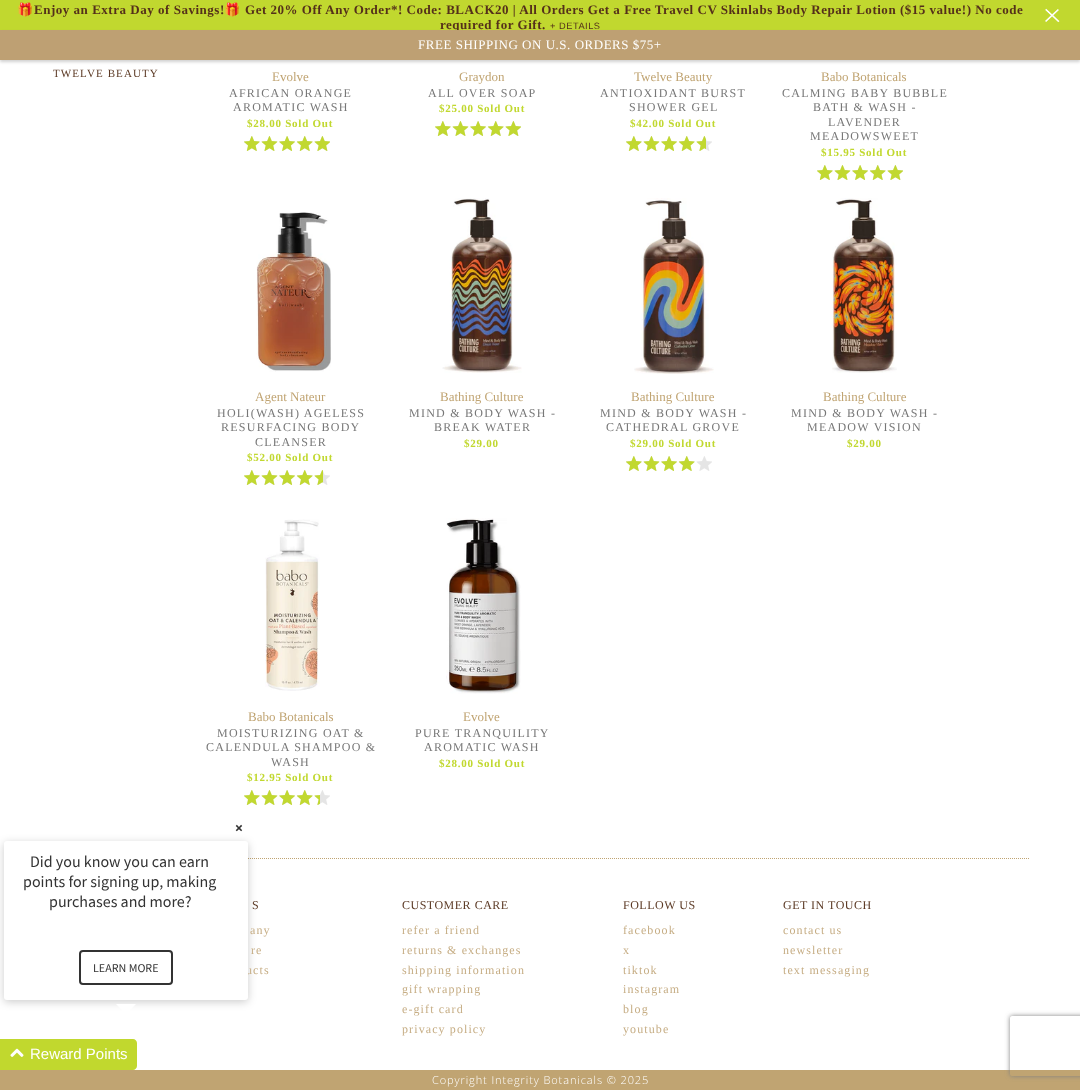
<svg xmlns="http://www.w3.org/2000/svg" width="1080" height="1090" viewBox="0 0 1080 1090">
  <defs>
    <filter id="blur1" x="-50%" y="-200%" width="200%" height="500%"><feGaussianBlur stdDeviation="1.5"/></filter>
    <filter id="blur2" x="-50%" y="-200%" width="200%" height="500%"><feGaussianBlur stdDeviation="4"/></filter>
    <clipPath id="clip1"><path d="M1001 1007H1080V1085H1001ZM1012 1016H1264C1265 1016 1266 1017 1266 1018V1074C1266 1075 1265 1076 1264 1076H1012C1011 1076 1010 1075 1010 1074V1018C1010 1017 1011 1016 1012 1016Z" clip-rule="evenodd"/></clipPath>
    <filter id="blur3" x="-50%" y="-200%" width="200%" height="500%"><feGaussianBlur stdDeviation="2.5"/></filter>
  </defs>
  <rect width="100%" height="100%" fill="#ffffff"/>
  <rect x="0" y="0" width="1080" height="30" fill="#c1d82f"/>
  <text x="17" y="14" font-family="Noto Color Emoji" font-size="13" font-weight="bold" letter-spacing="0.52" fill="#54301a">🎁</text>
  <text x="34" y="14" font-family="Liberation Serif" font-size="13" font-weight="bold" letter-spacing="0.52" fill="#54301a">Enjoy an Extra Day of Savings!</text>
  <text x="224" y="14" font-family="Noto Color Emoji" font-size="13" font-weight="bold" letter-spacing="0.52" fill="#54301a">🎁</text>
  <text x="245" y="14" font-family="Liberation Serif" font-size="13" font-weight="bold" letter-spacing="0.52" fill="#54301a">Get 20% Off Any Order*! Code: BLACK20 | All Orders Get a Free Travel CV Skinlabs Body Repair Lotion ($15 value!) No code</text>
  <text x="440" y="29" font-family="Liberation Serif" font-size="13" font-weight="bold" letter-spacing="0.52" fill="#54301a">required for Gift.</text>
  <text x="550" y="29" font-family="Liberation Sans" font-size="9.25" letter-spacing="0.52" fill="#54301a">+ DETAILS</text>
  <image x="1045" y="8" width="15" height="15" href="img1.png"/>
  <rect x="0" y="32" width="1080" height="30" fill="#000000" fill-opacity="0.18" filter="url(#blur1)"/>
  <rect x="0" y="30" width="1080" height="30" fill="#bea073"/>
  <text x="418" y="49" font-family="Liberation Serif" font-size="13" letter-spacing="0.52" fill="#ffffff">FREE SHIPPING ON U.S. ORDERS $75+</text>
  <text x="53" y="77" font-family="Liberation Serif" font-size="11" letter-spacing="1.1" fill="#5c3a25">TWELVE BEAUTY</text>
  <text x="272" y="81" font-family="Liberation Serif" font-size="13" fill="#c0a472">Evolve</text>
  <text x="229" y="97" font-family="Liberation Serif" font-size="12" letter-spacing="1.25" fill="#777777">AFRICAN ORANGE</text>
  <text x="233" y="111" font-family="Liberation Serif" font-size="12" letter-spacing="1.25" fill="#777777">AROMATIC WASH</text>
  <text x="247" y="127" font-family="Liberation Serif" font-size="11" font-weight="bold" letter-spacing="0.75" fill="#c1d82f">$28.00 Sold Out</text>
  <image x="244" y="136" width="86" height="15" href="img2.png"/>
  <image x="244" y="136" width="86" height="15" href="img3.png"/>
  <text x="459" y="81" font-family="Liberation Serif" font-size="13" fill="#c0a472">Graydon</text>
  <text x="428" y="97" font-family="Liberation Serif" font-size="12" letter-spacing="1.25" fill="#777777">ALL OVER SOAP</text>
  <text x="439" y="112" font-family="Liberation Serif" font-size="11" font-weight="bold" letter-spacing="0.75" fill="#c1d82f">$25.00 Sold Out</text>
  <image x="435" y="121" width="86" height="15" href="img2.png"/>
  <image x="435" y="121" width="86" height="15" href="img3.png"/>
  <text x="634" y="81" font-family="Liberation Serif" font-size="13" fill="#c0a472">Twelve Beauty</text>
  <text x="600" y="97" font-family="Liberation Serif" font-size="12" letter-spacing="1.25" fill="#777777">ANTIOXIDANT BURST</text>
  <text x="629" y="111" font-family="Liberation Serif" font-size="12" letter-spacing="1.25" fill="#777777">SHOWER GEL</text>
  <text x="630" y="127" font-family="Liberation Serif" font-size="11" font-weight="bold" letter-spacing="0.75" fill="#c1d82f">$42.00 Sold Out</text>
  <image x="626" y="136" width="86" height="15" href="img2.png"/>
  <image x="626" y="136" width="80" height="15" href="img4.png"/>
  <text x="821" y="81" font-family="Liberation Serif" font-size="13" fill="#c0a472">Babo Botanicals</text>
  <text x="782" y="97" font-family="Liberation Serif" font-size="12" letter-spacing="1.25" fill="#777777">CALMING BABY BUBBLE</text>
  <text x="813" y="111" font-family="Liberation Serif" font-size="12" letter-spacing="1.25" fill="#777777">BATH &amp; WASH -</text>
  <text x="828" y="126" font-family="Liberation Serif" font-size="12" letter-spacing="1.25" fill="#777777">LAVENDER</text>
  <text x="810" y="140" font-family="Liberation Serif" font-size="12" letter-spacing="1.25" fill="#777777">MEADOWSWEET</text>
  <text x="821" y="156" font-family="Liberation Serif" font-size="11" font-weight="bold" letter-spacing="0.75" fill="#c1d82f">$15.95 Sold Out</text>
  <image x="817" y="165" width="86" height="15" href="img2.png"/>
  <image x="817" y="165" width="86" height="15" href="img3.png"/>
  <image x="256" y="212" width="75" height="160" href="img5.png"/>
  <text x="255" y="401" font-family="Liberation Serif" font-size="13" fill="#c0a472">Agent Nateur</text>
  <text x="217" y="417" font-family="Liberation Serif" font-size="12" letter-spacing="1.25" fill="#777777">HOLI(WASH) AGELESS</text>
  <text x="221" y="431" font-family="Liberation Serif" font-size="12" letter-spacing="1.25" fill="#777777">RESURFACING BODY</text>
  <text x="255" y="446" font-family="Liberation Serif" font-size="12" letter-spacing="1.25" fill="#777777">CLEANSER</text>
  <text x="247" y="461" font-family="Liberation Serif" font-size="11" font-weight="bold" letter-spacing="0.75" fill="#c1d82f">$52.00 Sold Out</text>
  <image x="244" y="470" width="86" height="15" href="img2.png"/>
  <image x="244" y="470" width="79" height="15" href="img6.png"/>
  <image x="442" y="198" width="80" height="175" href="img7.png"/>
  <text x="440" y="401" font-family="Liberation Serif" font-size="13" fill="#c0a472">Bathing Culture</text>
  <text x="409" y="417" font-family="Liberation Serif" font-size="12" letter-spacing="1.25" fill="#777777">MIND &amp; BODY WASH -</text>
  <text x="434" y="431" font-family="Liberation Serif" font-size="12" letter-spacing="1.25" fill="#777777">BREAK WATER</text>
  <text x="464" y="447" font-family="Liberation Serif" font-size="11" font-weight="bold" letter-spacing="0.75" fill="#c1d82f">$29.00</text>
  <image x="634" y="198" width="80" height="176" href="img8.png"/>
  <text x="631" y="401" font-family="Liberation Serif" font-size="13" fill="#c0a472">Bathing Culture</text>
  <text x="600" y="417" font-family="Liberation Serif" font-size="12" letter-spacing="1.25" fill="#777777">MIND &amp; BODY WASH -</text>
  <text x="606" y="431" font-family="Liberation Serif" font-size="12" letter-spacing="1.25" fill="#777777">CATHEDRAL GROVE</text>
  <text x="630" y="447" font-family="Liberation Serif" font-size="11" font-weight="bold" letter-spacing="0.75" fill="#c1d82f">$29.00 Sold Out</text>
  <image x="626" y="456" width="86" height="15" href="img2.png"/>
  <image x="626" y="456" width="69" height="15" href="img9.png"/>
  <image x="832" y="198" width="65" height="175" href="img10.png"/>
  <text x="823" y="401" font-family="Liberation Serif" font-size="13" fill="#c0a472">Bathing Culture</text>
  <text x="791" y="417" font-family="Liberation Serif" font-size="12" letter-spacing="1.25" fill="#777777">MIND &amp; BODY WASH -</text>
  <text x="807" y="431" font-family="Liberation Serif" font-size="12" letter-spacing="1.25" fill="#777777">MEADOW VISION</text>
  <text x="847" y="447" font-family="Liberation Serif" font-size="11" font-weight="bold" letter-spacing="0.75" fill="#c1d82f">$29.00</text>
  <image x="265" y="519" width="55" height="172" href="img11.png"/>
  <text x="248" y="721" font-family="Liberation Serif" font-size="13" fill="#c0a472">Babo Botanicals</text>
  <text x="217" y="737" font-family="Liberation Serif" font-size="12" letter-spacing="1.25" fill="#777777">MOISTURIZING OAT &amp;</text>
  <text x="206" y="751" font-family="Liberation Serif" font-size="12" letter-spacing="1.25" fill="#777777">CALENDULA SHAMPOO &amp;</text>
  <text x="271" y="766" font-family="Liberation Serif" font-size="12" letter-spacing="1.25" fill="#777777">WASH</text>
  <text x="247" y="781" font-family="Liberation Serif" font-size="11" font-weight="bold" letter-spacing="0.75" fill="#c1d82f">$12.95 Sold Out</text>
  <image x="244" y="790" width="86" height="15" href="img2.png"/>
  <image x="244" y="790" width="76" height="15" href="img12.png"/>
  <image x="446" y="518" width="75" height="176" href="img13.png"/>
  <text x="463" y="721" font-family="Liberation Serif" font-size="13" fill="#c0a472">Evolve</text>
  <text x="415" y="737" font-family="Liberation Serif" font-size="12" letter-spacing="1.25" fill="#777777">PURE TRANQUILITY</text>
  <text x="424" y="751" font-family="Liberation Serif" font-size="12" letter-spacing="1.25" fill="#777777">AROMATIC WASH</text>
  <text x="439" y="767" font-family="Liberation Serif" font-size="11" font-weight="bold" letter-spacing="0.75" fill="#c1d82f">$28.00 Sold Out</text>
  <text x="235" y="833" font-family="Source Sans Pro" font-size="15" font-weight="bold" fill="#333333">×</text>
  <path d="M50 858.5H1030" fill="none" stroke="#c0a472" stroke-dasharray="1 1"/>
  <rect x="4" y="843" width="244" height="159" rx="3" fill="#000000" fill-opacity="0.2" filter="url(#blur2)"/>
  <text x="246" y="974" font-family="Liberation Serif" font-size="12" letter-spacing="1.1" fill="#c6ad84">ucts</text>
  <rect x="4" y="841" width="244" height="159" rx="3" fill="#ffffff"/>
  <text x="30" y="867" font-family="Source Sans Pro" font-size="16" fill="#333333">Did you know you can earn</text>
  <text x="23" y="887" font-family="Source Sans Pro" font-size="16" fill="#333333">points for signing up, making</text>
  <text x="49" y="907" font-family="Source Sans Pro" font-size="16" fill="#333333">purchases and more?</text>
  <rect x="80" y="951" width="92" height="33" rx="3" fill="none" stroke="#333333" stroke-width="2"/>
  <text x="93" y="972" font-family="Source Sans Pro" font-size="12" fill="#333333">LEARN MORE</text>
  <path d="M116 1004H136L126 1014Z" fill="#ffffff"/>
  <path d="M0 1039H133C135 1039 137 1041 137 1043V1066C137 1068 135 1070 133 1070H0Z" fill="#c1d82e"/>
  <image x="10" y="1048" width="14" height="9" href="img14.png"/>
  <text x="30" y="1059" font-family="Liberation Sans" font-size="15" fill="#ffffff">Reward Points</text>
  <text x="252" y="909" font-family="Liberation Serif" font-size="12" letter-spacing="0.5" fill="#5c3a25">S</text>
  <text x="250" y="934" font-family="Liberation Serif" font-size="12" letter-spacing="1.1" fill="#c6ad84">any</text>
  <text x="251" y="954" font-family="Liberation Serif" font-size="12" letter-spacing="1.1" fill="#c6ad84">re</text>
  <text x="402" y="909" font-family="Liberation Serif" font-size="12" letter-spacing="0.5" fill="#5c3a25">CUSTOMER CARE</text>
  <text x="402" y="934" font-family="Liberation Serif" font-size="12" letter-spacing="1.1" fill="#c6ad84">refer a friend</text>
  <text x="402" y="954" font-family="Liberation Serif" font-size="12" letter-spacing="1.1" fill="#c6ad84">returns &amp; exchanges</text>
  <text x="402" y="974" font-family="Liberation Serif" font-size="12" letter-spacing="1.1" fill="#c6ad84">shipping information</text>
  <text x="402" y="993" font-family="Liberation Serif" font-size="12" letter-spacing="1.1" fill="#c6ad84">gift wrapping</text>
  <text x="402" y="1013" font-family="Liberation Serif" font-size="12" letter-spacing="1.1" fill="#c6ad84">e-gift card</text>
  <text x="402" y="1033" font-family="Liberation Serif" font-size="12" letter-spacing="1.1" fill="#c6ad84">privacy policy</text>
  <text x="623" y="909" font-family="Liberation Serif" font-size="12" letter-spacing="0.5" fill="#5c3a25">FOLLOW US</text>
  <text x="623" y="934" font-family="Liberation Serif" font-size="12" letter-spacing="1.1" fill="#c6ad84">facebook</text>
  <text x="623" y="954" font-family="Liberation Serif" font-size="12" letter-spacing="1.1" fill="#c6ad84">x</text>
  <text x="623" y="974" font-family="Liberation Serif" font-size="12" letter-spacing="1.1" fill="#c6ad84">tiktok</text>
  <text x="623" y="993" font-family="Liberation Serif" font-size="12" letter-spacing="1.1" fill="#c6ad84">instagram</text>
  <text x="623" y="1013" font-family="Liberation Serif" font-size="12" letter-spacing="1.1" fill="#c6ad84">blog</text>
  <text x="623" y="1033" font-family="Liberation Serif" font-size="12" letter-spacing="1.1" fill="#c6ad84">youtube</text>
  <text x="783" y="909" font-family="Liberation Serif" font-size="12" letter-spacing="0.5" fill="#5c3a25">GET IN TOUCH</text>
  <text x="783" y="934" font-family="Liberation Serif" font-size="12" letter-spacing="1.1" fill="#c6ad84">contact us</text>
  <text x="783" y="954" font-family="Liberation Serif" font-size="12" letter-spacing="1.1" fill="#c6ad84">newsletter</text>
  <text x="783" y="974" font-family="Liberation Serif" font-size="12" letter-spacing="1.1" fill="#c6ad84">text messaging</text>
  <rect x="0" y="1070" width="1080" height="20" fill="#c0a472"/>
  <text x="432" y="1084" font-family="Open Sans" font-size="11" font-weight="300" letter-spacing="0.9" fill="#ffffff">Copyright Integrity Botanicals © 2025</text>
  <g clip-path="url(#clip1)">
    <rect x="1010" y="1016" width="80" height="60" rx="2" fill="#808080" filter="url(#blur3)"/>
  </g>
</svg>
